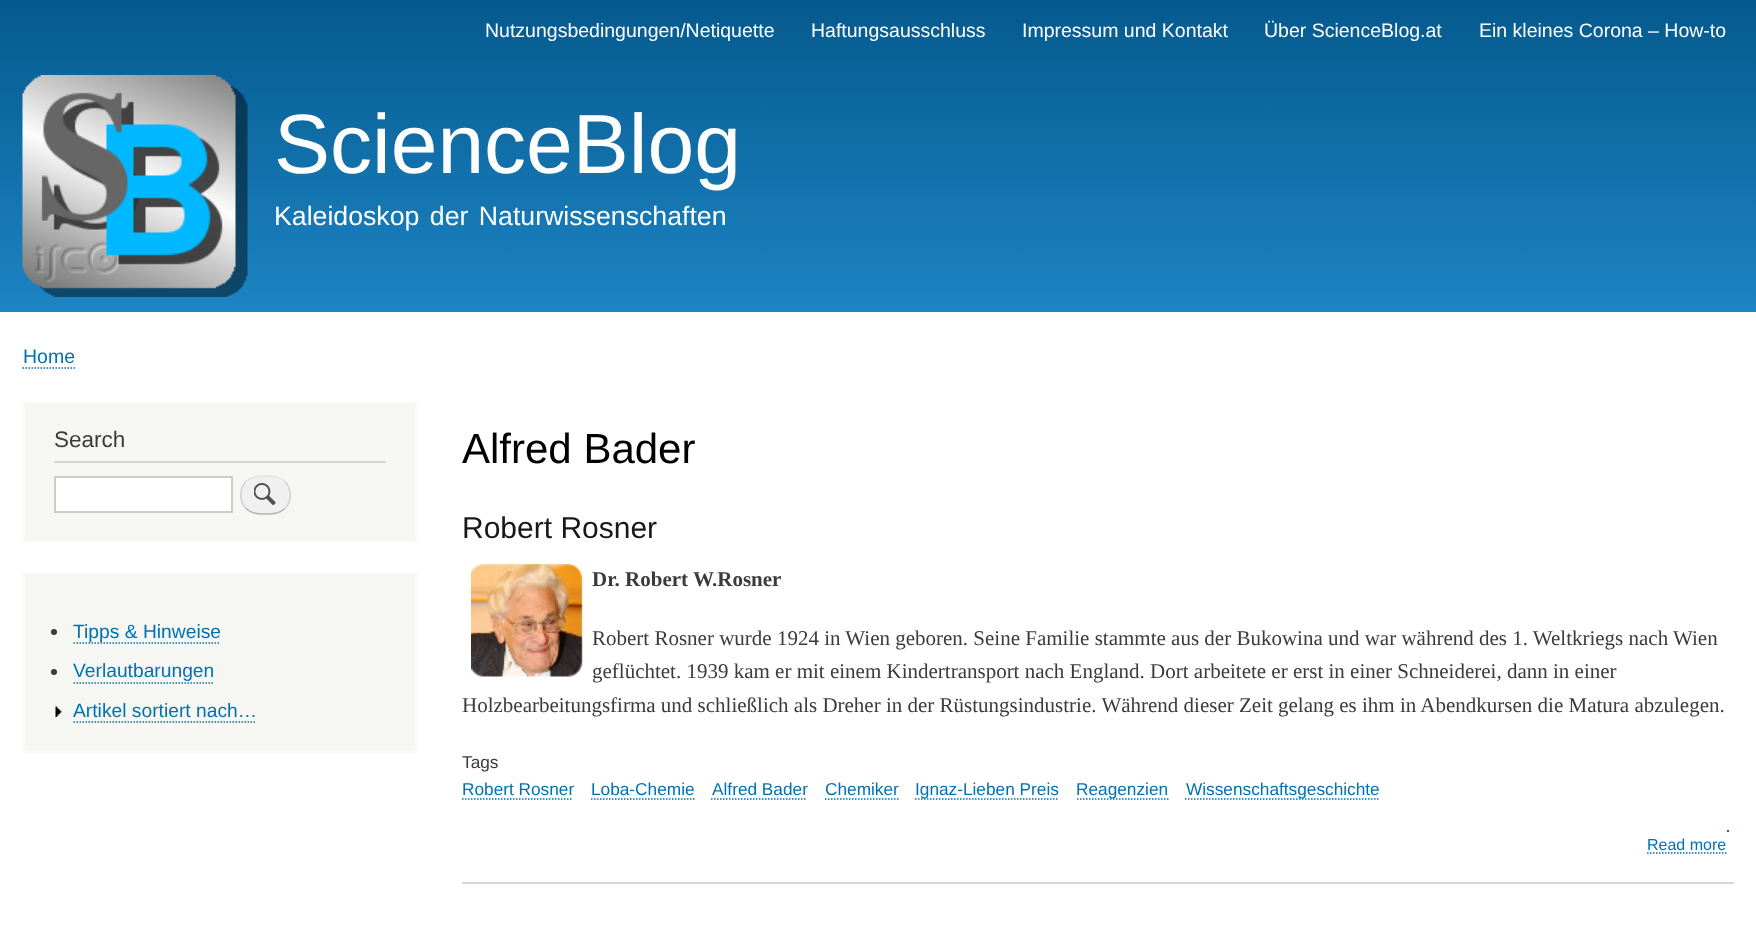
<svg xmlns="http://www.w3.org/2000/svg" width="1756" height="934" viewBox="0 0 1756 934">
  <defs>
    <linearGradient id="g1" gradientUnits="userSpaceOnUse" x1="878" y1="0" x2="878" y2="312"><stop offset="0" stop-color="#055a8e"/><stop offset="1" stop-color="#1d84c3"/></linearGradient>
  </defs>
  <rect width="100%" height="100%" fill="#ffffff"/>
  <rect x="0" y="0" width="1756" height="312" fill="url(#g1)"/>
  <text x="485" y="37" font-family="Liberation Sans" font-size="19.5" fill="#fffeff">Nutzungsbedingungen/Netiquette</text>
  <text x="811" y="37" font-family="Liberation Sans" font-size="19.5" fill="#fffeff">Haftungsausschluss</text>
  <text x="1022" y="37" font-family="Liberation Sans" font-size="19.5" fill="#fffeff">Impressum und Kontakt</text>
  <text x="1264" y="37" font-family="Liberation Sans" font-size="19.5" fill="#fffeff">Über ScienceBlog.at</text>
  <text x="1479" y="37" font-family="Liberation Sans" font-size="19.5" fill="#fffeff">Ein kleines Corona – How-to</text>
  <image x="22" y="75" width="226" height="222" href="img1.png"/>
  <text x="274" y="173" font-family="Liberation Sans" font-size="84" fill="#fffeff">ScienceBlog</text>
  <text x="274" y="225" word-spacing="3" font-family="Liberation Sans" font-size="26.7" fill="#fffeff">Kaleidoskop der Naturwissenschaften</text>
  <text x="23" y="363" font-family="Liberation Sans" font-size="19.5" fill="#0071b3">Home</text>
  <path d="M22.5 368H75" fill="none" stroke="#0071b3" stroke-width="1.5" stroke-dasharray="1.5 1.5"/>
  <rect x="24" y="403" width="392" height="138" fill="#f6f6f2" stroke="#f9f9f9" stroke-width="2"/>
  <rect x="54" y="461" width="332" height="2" fill="#d6d6d6"/>
  <text x="54" y="447" font-family="Liberation Sans" font-size="22.5" fill="#3b3b3b">Search</text>
  <rect x="55" y="477" width="177" height="35" fill="#ffffff" stroke="#cccccc" stroke-width="2"/>
  <rect x="240" y="476" width="51" height="39" rx="19.5" fill="#f0f0f0"/>
  <image x="254" y="483" width="22" height="23" href="img2.png"/>
  <path d="M246 481.5C252 476 258 476 265.5 476C273 476 279 476 285 481.5" fill="none" stroke="#e4e4e4" stroke-width="1.5"/>
  <path d="M285 481.5C292 489 292 501 285 508.5" fill="none" stroke="#d2d2d2" stroke-width="1.5"/>
  <path d="M285 508.5C279 514 273 514 265.5 514C258 514 252 514 246 508.5" fill="none" stroke="#b4b4b4" stroke-width="1.5"/>
  <path d="M246 508.5C239 501 239 489 246 481.5" fill="none" stroke="#d2d2d2" stroke-width="1.5"/>
  <rect x="24" y="573" width="392" height="179" fill="#f6f6f2" stroke="#f9f9f9" stroke-width="2"/>
  <circle cx="54" cy="632" r="3" fill="#3b3b3b"/>
  <text x="73" y="638" font-family="Liberation Sans" font-size="19.25" fill="#0071b3">Tipps &amp; Hinweise</text>
  <path d="M73.5 643H220.5" fill="none" stroke="#0071b3" stroke-width="1.5" stroke-dasharray="1.5 1.5"/>
  <circle cx="54" cy="672" r="3" fill="#3b3b3b"/>
  <text x="73" y="677" font-family="Liberation Sans" font-size="19.25" fill="#0071b3">Verlautbarungen</text>
  <path d="M73.5 683H214.5" fill="none" stroke="#0071b3" stroke-width="1.5" stroke-dasharray="1.5 1.5"/>
  <image x="55" y="706" width="7" height="11" href="img3.png"/>
  <text x="73" y="717" font-family="Liberation Sans" font-size="19.25" fill="#0071b3">Artikel sortiert nach…</text>
  <path d="M73.5 722H256.5" fill="none" stroke="#0071b3" stroke-width="1.5" stroke-dasharray="1.5 1.5"/>
  <text x="462" y="463" font-family="Liberation Sans" font-size="42" fill="#000000">Alfred Bader</text>
  <rect x="462" y="882" width="1272" height="2" fill="#d3d7d9"/>
  <text x="462" y="538" font-family="Liberation Sans" font-size="30" fill="#181818">Robert Rosner</text>
  <image x="471" y="564" width="112" height="113" href="img4.png"/>
  <text x="592" y="586" font-family="Liberation Serif" font-size="21" font-weight="bold" fill="#3b3b3b">Dr. Robert W.Rosner</text>
  <text x="592" y="645" font-family="Liberation Serif" font-size="21" fill="#3b3b3b">Robert Rosner wurde 1924 in Wien geboren. Seine Familie stammte aus der Bukowina und war während des 1. Weltkriegs nach Wien</text>
  <text x="592" y="678" font-family="Liberation Serif" font-size="21" fill="#3b3b3b">geflüchtet. 1939 kam er mit einem Kindertransport nach England. Dort arbeitete er erst in einer Schneiderei, dann in einer</text>
  <text x="462" y="712" font-family="Liberation Serif" font-size="21" fill="#3b3b3b">Holzbearbeitungsfirma und schließlich als Dreher in der Rüstungsindustrie. Während dieser Zeit gelang es ihm in Abendkursen die Matura abzulegen.</text>
  <text x="462" y="768" font-family="Liberation Sans" font-size="17.25" fill="#3b3b3b">Tags</text>
  <text x="462" y="795" font-family="Liberation Sans" font-size="17.25" fill="#0071b3">Robert Rosner</text>
  <path d="M462 799H573" fill="none" stroke="#0071b3" stroke-width="1.5" stroke-dasharray="1.5 1.5"/>
  <text x="591" y="795" font-family="Liberation Sans" font-size="17.25" fill="#0071b3">Loba-Chemie</text>
  <path d="M591 799H694.5" fill="none" stroke="#0071b3" stroke-width="1.5" stroke-dasharray="1.5 1.5"/>
  <text x="712" y="795" font-family="Liberation Sans" font-size="17.25" fill="#0071b3">Alfred Bader</text>
  <path d="M711 799H807" fill="none" stroke="#0071b3" stroke-width="1.5" stroke-dasharray="1.5 1.5"/>
  <text x="825" y="795" font-family="Liberation Sans" font-size="17.25" fill="#0071b3">Chemiker</text>
  <path d="M825 799H898.5" fill="none" stroke="#0071b3" stroke-width="1.5" stroke-dasharray="1.5 1.5"/>
  <path d="M915 799H1059" fill="none" stroke="#0071b3" stroke-width="1.5" stroke-dasharray="1.5 1.5"/>
  <text x="915" y="795" font-family="Liberation Sans" font-size="17.25" fill="#0071b3">Ignaz-Lieben Preis</text>
  <path d="M1077 799H1168.5" fill="none" stroke="#0071b3" stroke-width="1.5" stroke-dasharray="1.5 1.5"/>
  <text x="1076" y="795" font-family="Liberation Sans" font-size="17.25" fill="#0071b3">Reagenzien</text>
  <path d="M1185 799H1378.5" fill="none" stroke="#0071b3" stroke-width="1.5" stroke-dasharray="1.5 1.5"/>
  <text x="1186" y="795" font-family="Liberation Sans" font-size="17.25" fill="#0071b3">Wissenschaftsgeschichte</text>
  <text x="1647" y="850" font-family="Liberation Sans" font-size="16" fill="#0071b3">Read more</text>
  <path d="M1647 853H1726.5" fill="none" stroke="#0071b3" stroke-width="1.5" stroke-dasharray="1.5 1.5"/>
  <rect x="1727" y="830" width="2" height="2" fill="#0071b3"/>
</svg>
